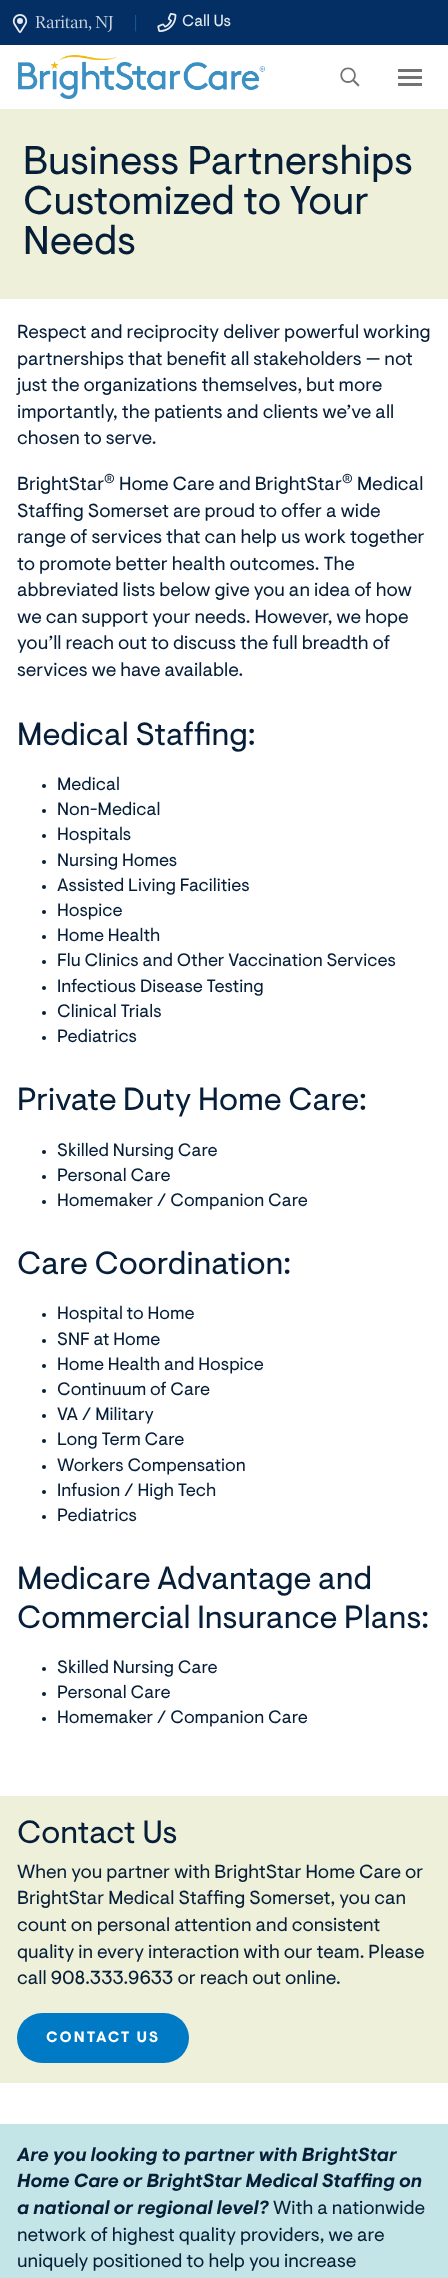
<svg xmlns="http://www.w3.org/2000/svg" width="448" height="2278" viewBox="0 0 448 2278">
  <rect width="100%" height="100%" fill="#ffffff"/>
  <rect x="0" y="0" width="448" height="45" fill="#032f65"/>
  <image x="12" y="14" width="16" height="19" href="img1.png"/>
  <text x="35" y="28" font-family="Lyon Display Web" font-size="18" font-weight="300" fill="#cdd5e0">Raritan, NJ</text>
  <text x="134" y="28" font-family="Lyon Display Web" font-size="18" font-weight="300" fill="#307caf">|</text>
  <image x="157" y="13" width="20" height="19" href="img2.png"/>
  <text x="182" y="26" font-family="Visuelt" font-size="16" fill="#e6eaf0">Call Us</text>
  <image x="18" y="55" width="247" height="44" href="img3.png"/>
  <image x="340" y="67" width="20" height="20" href="img4.png"/>
  <rect x="398" y="76" width="24" height="3" fill="#737373"/>
  <rect x="398" y="69" width="24" height="3" fill="#737373"/>
  <rect x="398" y="83" width="24" height="3" fill="#737373"/>
  <rect x="0" y="109" width="448" height="190" fill="#eef0d9"/>
  <text x="23" y="174" font-family="Visuelt" font-size="40" fill="#061e38">Business Partnerships</text>
  <text x="23" y="214" font-family="Visuelt" font-size="40" fill="#061e38">Customized to Your</text>
  <text x="23" y="254" font-family="Visuelt" font-size="40" fill="#061e38">Needs</text>
  <text x="17" y="338" font-family="Visuelt" font-size="19" fill="#061e38">Respect and reciprocity deliver powerful working</text>
  <text x="17" y="365" font-family="Visuelt" font-size="19" fill="#061e38">partnerships that benefit all stakeholders — not</text>
  <text x="17" y="391" font-family="Visuelt" font-size="19" fill="#061e38">just the organizations themselves, but more</text>
  <text x="17" y="418" font-family="Visuelt" font-size="19" fill="#061e38">importantly, the patients and clients we’ve all</text>
  <text x="17" y="444" font-family="Visuelt" font-size="19" fill="#061e38">chosen to serve.</text>
  <text x="17" y="490" font-family="Visuelt" font-size="19" fill="#061e38">BrightStar</text>
  <text x="104" y="483" font-family="Visuelt" font-size="13" fill="#061e38">®</text>
  <text x="119" y="490" font-family="Visuelt" font-size="19" fill="#061e38">Home Care and BrightStar</text>
  <text x="342" y="483" font-family="Visuelt" font-size="13" fill="#061e38">®</text>
  <text x="357" y="490" font-family="Visuelt" font-size="19" fill="#061e38">Medical</text>
  <text x="17" y="517" font-family="Visuelt" font-size="19" fill="#061e38">Staffing Somerset are proud to offer a wide</text>
  <text x="17" y="543" font-family="Visuelt" font-size="19" fill="#061e38">range of services that can help us work together</text>
  <text x="17" y="570" font-family="Visuelt" font-size="19" fill="#061e38">to promote better health outcomes. The</text>
  <text x="17" y="596" font-family="Visuelt" font-size="19" fill="#061e38">abbreviated lists below give you an idea of how</text>
  <text x="17" y="623" font-family="Visuelt" font-size="19" fill="#061e38">we can support your needs. However, we hope</text>
  <text x="17" y="649" font-family="Visuelt" font-size="19" fill="#061e38">you’ll reach out to discuss the full breadth of</text>
  <text x="17" y="676" font-family="Visuelt" font-size="19" fill="#061e38">services we have available.</text>
  <text x="17" y="745" font-family="Visuelt" font-size="32" fill="#061e38">Medical Staffing:</text>
  <circle cx="44" cy="786" r="2" fill="#061e38"/>
  <text x="57" y="790" font-family="Visuelt" font-size="18" fill="#061e38">Medical</text>
  <circle cx="44" cy="811" r="2" fill="#061e38"/>
  <text x="57" y="815" font-family="Visuelt" font-size="18" fill="#061e38">Non-Medical</text>
  <circle cx="44" cy="836" r="2" fill="#061e38"/>
  <text x="57" y="840" font-family="Visuelt" font-size="18" fill="#061e38">Hospitals</text>
  <circle cx="44" cy="862" r="2" fill="#061e38"/>
  <text x="57" y="866" font-family="Visuelt" font-size="18" fill="#061e38">Nursing Homes</text>
  <circle cx="44" cy="887" r="2" fill="#061e38"/>
  <text x="57" y="891" font-family="Visuelt" font-size="18" fill="#061e38">Assisted Living Facilities</text>
  <circle cx="44" cy="912" r="2" fill="#061e38"/>
  <text x="57" y="916" font-family="Visuelt" font-size="18" fill="#061e38">Hospice</text>
  <circle cx="44" cy="937" r="2" fill="#061e38"/>
  <text x="57" y="941" font-family="Visuelt" font-size="18" fill="#061e38">Home Health</text>
  <circle cx="44" cy="962" r="2" fill="#061e38"/>
  <text x="57" y="966" font-family="Visuelt" font-size="18" fill="#061e38">Flu Clinics and Other Vaccination Services</text>
  <circle cx="44" cy="988" r="2" fill="#061e38"/>
  <text x="57" y="992" font-family="Visuelt" font-size="18" fill="#061e38">Infectious Disease Testing</text>
  <circle cx="44" cy="1013" r="2" fill="#061e38"/>
  <text x="57" y="1017" font-family="Visuelt" font-size="18" fill="#061e38">Clinical Trials</text>
  <circle cx="44" cy="1038" r="2" fill="#061e38"/>
  <text x="57" y="1042" font-family="Visuelt" font-size="18" fill="#061e38">Pediatrics</text>
  <text x="17" y="1110" font-family="Visuelt" font-size="32" fill="#061e38">Private Duty Home Care:</text>
  <circle cx="44" cy="1152" r="2" fill="#061e38"/>
  <text x="57" y="1156" font-family="Visuelt" font-size="18" fill="#061e38">Skilled Nursing Care</text>
  <circle cx="44" cy="1177" r="2" fill="#061e38"/>
  <text x="57" y="1181" font-family="Visuelt" font-size="18" fill="#061e38">Personal Care</text>
  <circle cx="44" cy="1202" r="2" fill="#061e38"/>
  <text x="57" y="1206" font-family="Visuelt" font-size="18" fill="#061e38">Homemaker / Companion Care</text>
  <text x="17" y="1274" font-family="Visuelt" font-size="32" fill="#061e38">Care Coordination:</text>
  <circle cx="44" cy="1315" r="2" fill="#061e38"/>
  <text x="57" y="1319" font-family="Visuelt" font-size="18" fill="#061e38">Hospital to Home</text>
  <circle cx="44" cy="1341" r="2" fill="#061e38"/>
  <text x="57" y="1345" font-family="Visuelt" font-size="18" fill="#061e38">SNF at Home</text>
  <circle cx="44" cy="1366" r="2" fill="#061e38"/>
  <text x="57" y="1370" font-family="Visuelt" font-size="18" fill="#061e38">Home Health and Hospice</text>
  <circle cx="44" cy="1391" r="2" fill="#061e38"/>
  <text x="57" y="1395" font-family="Visuelt" font-size="18" fill="#061e38">Continuum of Care</text>
  <circle cx="44" cy="1416" r="2" fill="#061e38"/>
  <text x="57" y="1420" font-family="Visuelt" font-size="18" fill="#061e38">VA / Military</text>
  <circle cx="44" cy="1441" r="2" fill="#061e38"/>
  <text x="57" y="1445" font-family="Visuelt" font-size="18" fill="#061e38">Long Term Care</text>
  <circle cx="44" cy="1467" r="2" fill="#061e38"/>
  <text x="57" y="1471" font-family="Visuelt" font-size="18" fill="#061e38">Workers Compensation</text>
  <circle cx="44" cy="1492" r="2" fill="#061e38"/>
  <text x="57" y="1496" font-family="Visuelt" font-size="18" fill="#061e38">Infusion / High Tech</text>
  <circle cx="44" cy="1517" r="2" fill="#061e38"/>
  <text x="57" y="1521" font-family="Visuelt" font-size="18" fill="#061e38">Pediatrics</text>
  <text x="17" y="1589" font-family="Visuelt" font-size="32" fill="#061e38">Medicare Advantage and</text>
  <text x="17" y="1628" font-family="Visuelt" font-size="32" fill="#061e38">Commercial Insurance Plans:</text>
  <circle cx="44" cy="1669" r="2" fill="#061e38"/>
  <text x="57" y="1673" font-family="Visuelt" font-size="18" fill="#061e38">Skilled Nursing Care</text>
  <circle cx="44" cy="1694" r="2" fill="#061e38"/>
  <text x="57" y="1698" font-family="Visuelt" font-size="18" fill="#061e38">Personal Care</text>
  <circle cx="44" cy="1719" r="2" fill="#061e38"/>
  <text x="57" y="1723" font-family="Visuelt" font-size="18" fill="#061e38">Homemaker / Companion Care</text>
  <rect x="0" y="1796" width="448" height="287" fill="#eef0d9"/>
  <text x="17" y="1843" font-family="Visuelt" font-size="32" fill="#061e38">Contact Us</text>
  <text x="17" y="1878" font-family="Visuelt" font-size="19" fill="#061e38">When you partner with BrightStar Home Care or</text>
  <text x="17" y="1904" font-family="Visuelt" font-size="19" fill="#061e38">BrightStar Medical Staffing Somerset, you can</text>
  <text x="17" y="1931" font-family="Visuelt" font-size="19" fill="#061e38">count on personal attention and consistent</text>
  <text x="17" y="1958" font-family="Visuelt" font-size="19" fill="#061e38">quality in every interaction with our team. Please</text>
  <text x="17" y="1984" font-family="Visuelt" font-size="19" fill="#061e38">call 908.333.9633 or reach out online.</text>
  <rect x="17" y="2013" width="172" height="50" rx="25" fill="#007ac5"/>
  <text x="46" y="2042" font-family="Visuelt" font-size="15" font-weight="bold" letter-spacing="2" fill="#ffffff">CONTACT US</text>
  <rect x="0" y="2124" width="448" height="154" fill="#c4e5e7"/>
  <text x="17" y="2161" font-family="Visuelt" font-size="19" font-weight="bold" font-style="italic" fill="#061e38">Are you looking to partner with BrightStar</text>
  <text x="17" y="2187" font-family="Visuelt" font-size="19" font-weight="bold" font-style="italic" fill="#061e38">Home Care or BrightStar Medical Staffing on</text>
  <text x="17" y="2214" font-family="Visuelt" font-size="19" font-weight="bold" font-style="italic" fill="#061e38">a national or regional level?</text>
  <text x="273" y="2214" font-family="Visuelt" font-size="19" fill="#061e38">With a nationwide</text>
  <text x="17" y="2241" font-family="Visuelt" font-size="19" fill="#061e38">network of highest quality providers, we are</text>
  <text x="17" y="2267" font-family="Visuelt" font-size="19" fill="#061e38">uniquely positioned to help you increase</text>
</svg>
